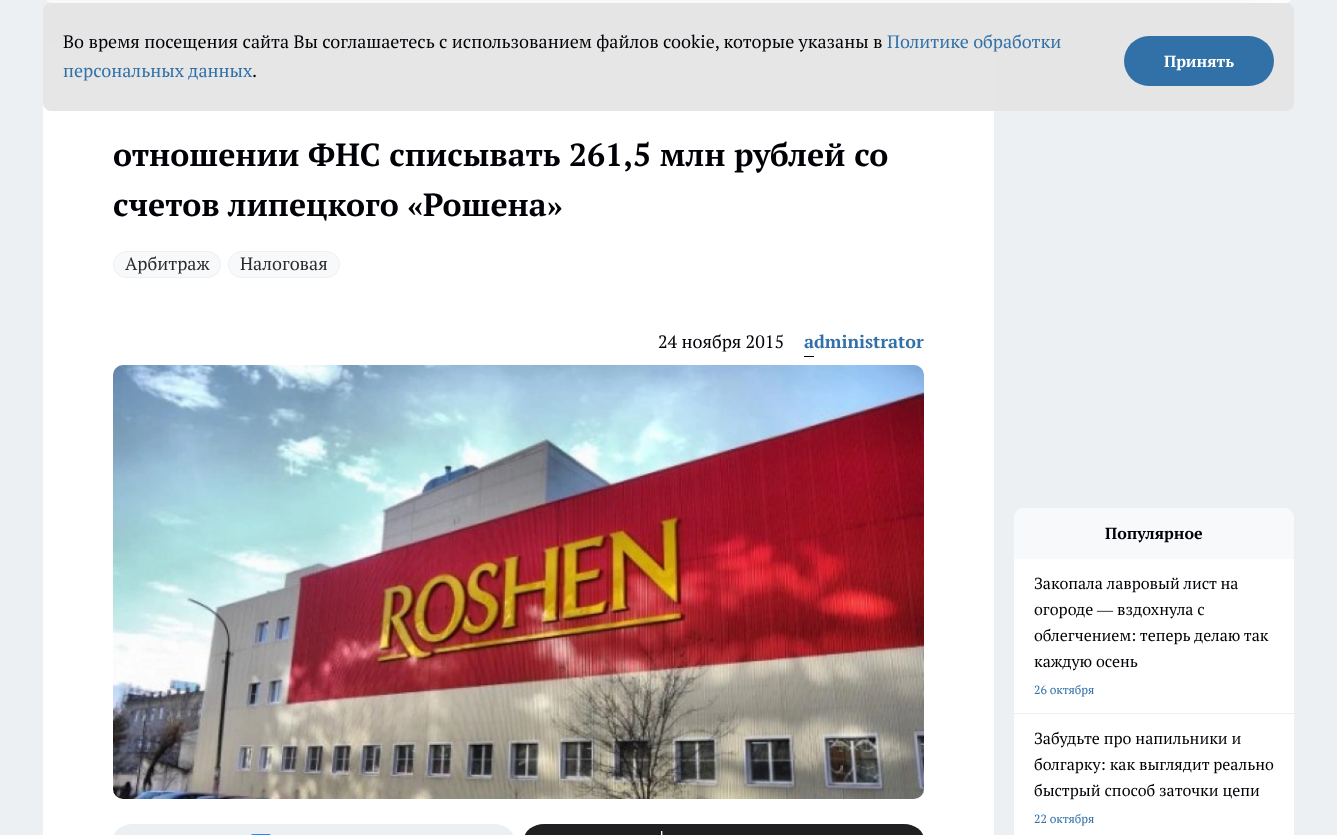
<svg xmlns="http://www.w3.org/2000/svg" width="1337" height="835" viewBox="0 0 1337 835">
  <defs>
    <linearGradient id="g1" gradientUnits="userSpaceOnUse" x1="1237" y1="-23" x2="1297" y2="-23"><stop offset="0" stop-color="#ffffff" stop-opacity="0"/><stop offset="1" stop-color="#ffffff"/></linearGradient>
  </defs>
  <rect width="100%" height="100%" fill="#ecf0f2"/>
  <path d="M43-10H1294V-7C1294-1.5 1289.5 3 1284 3H53C47.5 3 43-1.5 43-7Z" fill="#f7f9fa"/>
  <path d="M1237-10H1294V-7C1294-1.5 1289.5 3 1284 3H1237Z" fill="url(#g1)"/>
  <rect x="43" y="43" width="951" height="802" rx="10" fill="#ffffff"/>
  <rect x="43" y="3" width="1251" height="108" rx="8" fill="#e3e3e3" fill-opacity="0.91"/>
  <text x="63" y="48" font-family="PT Serif" font-size="18" fill="#000106">Во время посещения сайта Вы соглашаетесь с использованием файлов cookie, которые указаны в</text>
  <text x="887" y="48" font-family="PT Serif" font-size="18" fill="#3271a8">Политике обработки</text>
  <text x="63" y="77" font-family="PT Serif" font-size="18" fill="#3271a8">персональных данных</text>
  <text x="252" y="77" font-family="PT Serif" font-size="18" fill="#000106">.</text>
  <rect x="1124" y="36" width="150" height="50" rx="25" fill="#3271a8"/>
  <text x="1164" y="67" font-family="PT Serif" font-size="16" font-weight="bold" fill="#ffffff">Принять</text>
  <text x="113" y="166" font-family="PT Serif" font-size="32" font-weight="bold" fill="#000106">отношении ФНС списывать 261,5 млн рублей со</text>
  <text x="113" y="216" font-family="PT Serif" font-size="32" font-weight="bold" fill="#000106">счетов липецкого</text>
  <text x="407" y="216" font-family="Liberation Serif" font-size="32" font-weight="bold" fill="#000106">«</text>
  <text x="423" y="216" font-family="PT Serif" font-size="32" font-weight="bold" fill="#000106">Рошена</text>
  <text x="547" y="216" font-family="Liberation Serif" font-size="32" font-weight="bold" fill="#000106">»</text>
  <rect x="113.5" y="251.5" width="107" height="26" rx="13" fill="#f7f9fa" stroke="#ecf0f2"/>
  <text x="125" y="270" font-family="PT Serif" font-size="18" fill="#2b2b2b">Арбитраж</text>
  <rect x="228.5" y="251.5" width="111" height="26" rx="13" fill="#f7f9fa" stroke="#ecf0f2"/>
  <text x="240" y="270" font-family="PT Serif" font-size="18" fill="#2b2b2b">Налоговая</text>
  <text x="658" y="348" font-family="PT Serif" font-size="18" fill="#000106">24 ноября 2015</text>
  <text x="804" y="348" font-family="PT Serif" font-size="18" font-weight="bold" fill="#3271a8">administrator</text>
  <rect x="804" y="356" width="10" height="1" fill="#000106"/>
  <image x="113" y="365" width="811" height="434" href="img1.png"/>
  <rect x="113" y="824" width="401" height="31" rx="20" fill="#ecf0f2"/>
  <image x="251" y="834" width="20" height="1" href="img2.png"/>
  <rect x="524" y="824" width="400" height="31" rx="20" fill="#202022"/>
  <image x="661" y="831" width="2" height="4" href="img3.png"/>
  <rect x="1014" y="508" width="280" height="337" rx="10" fill="#ffffff"/>
  <path d="M1024 508H1284C1289.5 508 1294 512.5 1294 518V559H1014V518C1014 512.5 1018.5 508 1024 508Z" fill="#f7f9fa"/>
  <text x="1105" y="539" font-family="PT Serif" font-size="16" font-weight="bold" fill="#000106">Популярное</text>
  <rect x="1014" y="713" width="280" height="1" fill="#ecf0f2"/>
  <text x="1034" y="589" font-family="PT Serif" font-size="16" fill="#000106">Закопала лавровый лист на</text>
  <text x="1034" y="615" font-family="PT Serif" font-size="16" fill="#000106">огороде</text>
  <text x="1097" y="615" font-family="Liberation Serif" font-size="16" fill="#000106">—</text>
  <text x="1117" y="615" font-family="PT Serif" font-size="16" fill="#000106">вздохнула с</text>
  <text x="1034" y="641" font-family="PT Serif" font-size="16" fill="#000106">облегчением: теперь делаю так</text>
  <text x="1034" y="667" font-family="PT Serif" font-size="16" fill="#000106">каждую осень</text>
  <text x="1034" y="694" font-family="PT Serif" font-size="12" fill="#3271a8">26 октября</text>
  <text x="1034" y="744" font-family="PT Serif" font-size="16" fill="#000106">Забудьте про напильники и</text>
  <text x="1034" y="770" font-family="PT Serif" font-size="16" fill="#000106">болгарку: как выглядит реально</text>
  <text x="1034" y="796" font-family="PT Serif" font-size="16" fill="#000106">быстрый способ заточки цепи</text>
  <text x="1034" y="823" font-family="PT Serif" font-size="12" fill="#3271a8">22 октября</text>
</svg>
